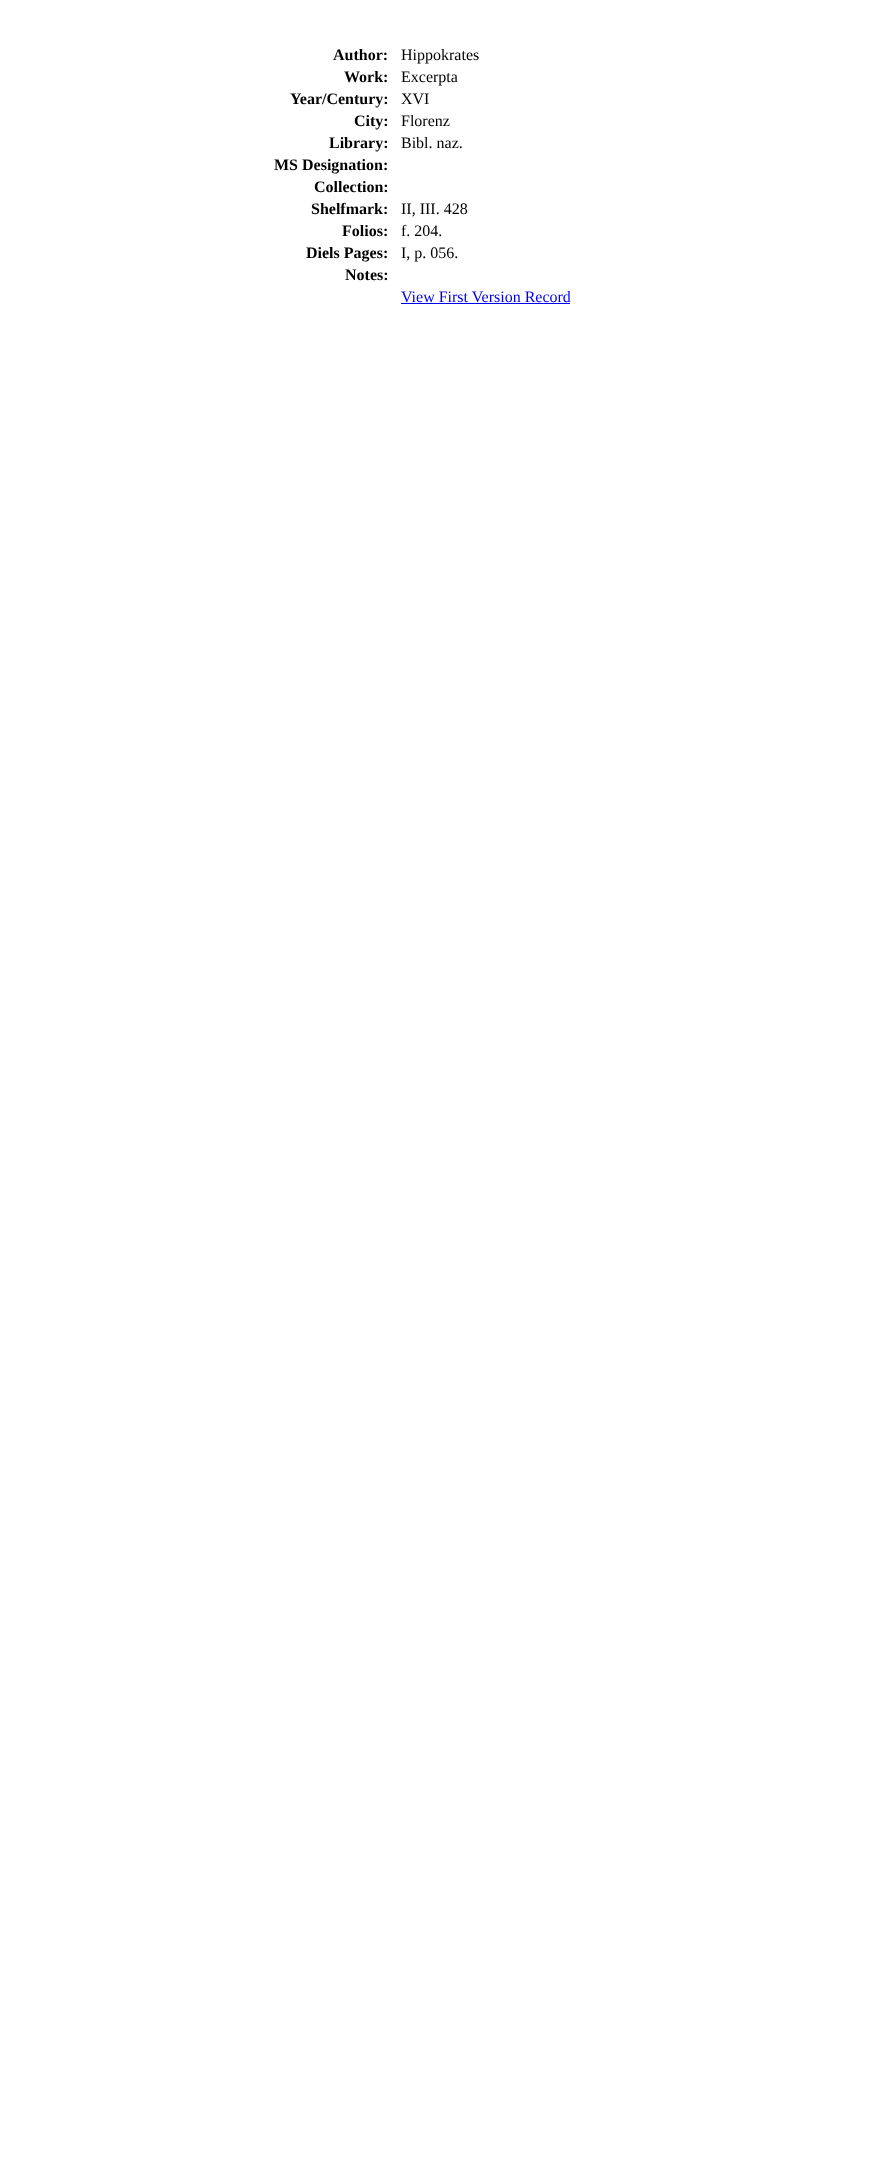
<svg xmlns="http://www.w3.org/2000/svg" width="889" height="2164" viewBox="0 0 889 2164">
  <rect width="100%" height="100%" fill="#ffffff"/>
  <text x="333" y="60" font-family="Liberation Serif" font-size="16" font-weight="bold" fill="#000000">Author:</text>
  <text x="401" y="60" font-family="Liberation Serif" font-size="16" fill="#000000">Hippokrates</text>
  <text x="344" y="82" font-family="Liberation Serif" font-size="16" font-weight="bold" fill="#000000">Work:</text>
  <text x="401" y="82" font-family="Liberation Serif" font-size="16" fill="#000000">Excerpta</text>
  <text x="290" y="104" font-family="Liberation Serif" font-size="16" font-weight="bold" fill="#000000">Year/Century:</text>
  <text x="401" y="104" font-family="Liberation Serif" font-size="16" fill="#000000">XVI</text>
  <text x="354" y="126" font-family="Liberation Serif" font-size="16" font-weight="bold" fill="#000000">City:</text>
  <text x="401" y="126" font-family="Liberation Serif" font-size="16" fill="#000000">Florenz</text>
  <text x="329" y="148" font-family="Liberation Serif" font-size="16" font-weight="bold" fill="#000000">Library:</text>
  <text x="401" y="148" font-family="Liberation Serif" font-size="16" fill="#000000">Bibl. naz.</text>
  <text x="274" y="170" font-family="Liberation Serif" font-size="16" font-weight="bold" fill="#000000">MS Designation:</text>
  <text x="314" y="192" font-family="Liberation Serif" font-size="16" font-weight="bold" fill="#000000">Collection:</text>
  <text x="311" y="214" font-family="Liberation Serif" font-size="16" font-weight="bold" fill="#000000">Shelfmark:</text>
  <text x="401" y="214" font-family="Liberation Serif" font-size="16" fill="#000000">II, III. 428</text>
  <text x="342" y="236" font-family="Liberation Serif" font-size="16" font-weight="bold" fill="#000000">Folios:</text>
  <text x="401" y="236" font-family="Liberation Serif" font-size="16" fill="#000000">f. 204.</text>
  <text x="306" y="258" font-family="Liberation Serif" font-size="16" font-weight="bold" fill="#000000">Diels Pages:</text>
  <text x="401" y="258" font-family="Liberation Serif" font-size="16" fill="#000000">I, p. 056.</text>
  <text x="345" y="280" font-family="Liberation Serif" font-size="16" font-weight="bold" fill="#000000">Notes:</text>
  <text x="401" y="302" font-family="Liberation Serif" font-size="16" fill="#0000ee">View First Version Record</text>
  <rect x="401" y="303" width="169" height="1" fill="#0000ee"/>
</svg>
